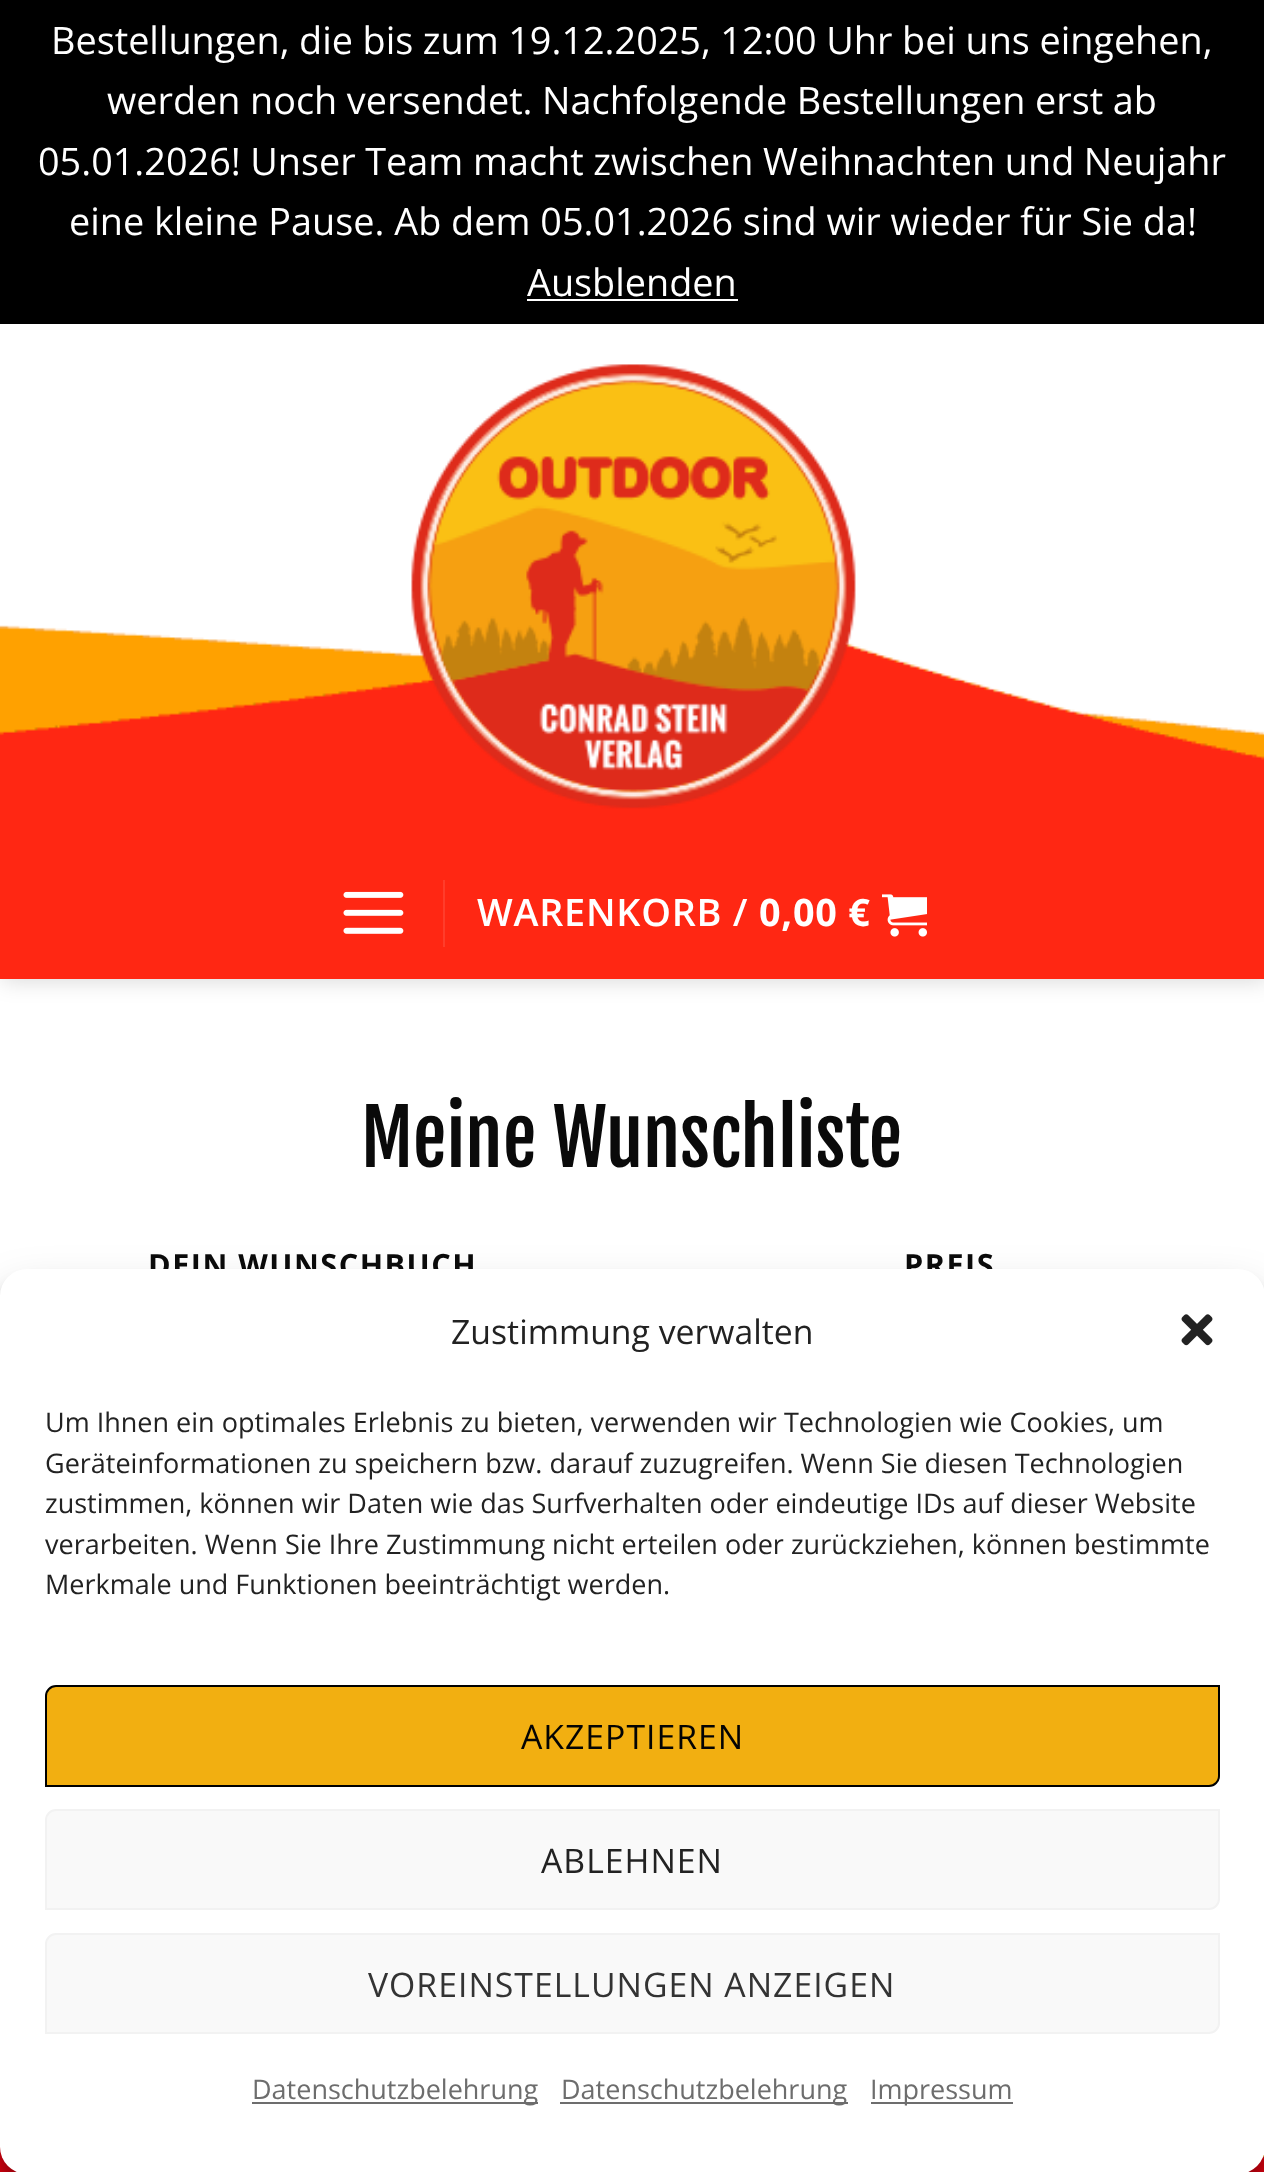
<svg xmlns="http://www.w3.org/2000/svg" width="1264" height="2172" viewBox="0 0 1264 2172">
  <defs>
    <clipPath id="clip1"><path d="M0 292H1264V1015H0ZM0 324H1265V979H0Z" clip-rule="evenodd"/></clipPath>
    <filter id="blur1" x="-50%" y="-200%" width="200%" height="500%"><feGaussianBlur stdDeviation="11"/></filter>
    <filter id="blur2" x="-50%" y="-200%" width="200%" height="500%"><feGaussianBlur stdDeviation="7"/></filter>
    <filter id="blur3" x="-50%" y="-200%" width="200%" height="500%"><feGaussianBlur stdDeviation="22.5"/></filter>
  </defs>
  <rect width="100%" height="100%" fill="#000000"/>
  <text x="51" y="54" word-spacing="-0.25" font-family="Open Sans" font-size="37.8" fill="#ffffff">Bestellungen, die bis zum 19.12.2025, 12:00 Uhr bei uns eingehen,</text>
  <text x="107" y="114" word-spacing="-0.25" font-family="Open Sans" font-size="37.8" fill="#ffffff">werden noch versendet. Nachfolgende Bestellungen erst ab</text>
  <text x="38" y="175" word-spacing="-0.25" font-family="Open Sans" font-size="37.8" fill="#ffffff">05.01.2026! Unser Team macht zwischen Weihnachten und Neujahr</text>
  <text x="69" y="235" font-family="Open Sans" font-size="37.8" fill="#ffffff">eine kleine Pause. Ab dem 05.01.2026 sind wir wieder für Sie da!</text>
  <text x="527" y="296" font-family="Open Sans" font-size="37.8" fill="#ffffff">Ausblenden</text>
  <rect x="527" y="299" width="211" height="2" fill="#ffffff"/>
  <rect x="0" y="324" width="1264" height="972" fill="#ffffff"/>
  <g clip-path="url(#clip1)">
    <rect x="2" y="326" width="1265" height="655" fill="#000000" fill-opacity="0.15" filter="url(#blur1)"/>
  </g>
  <image x="0" y="625" width="1264" height="221" href="img2.png"/>
  <image x="411" y="364" width="445" height="445" href="img1.png"/>
  <rect x="0" y="846" width="1264" height="133" fill="#ff2713"/>
  <image x="343" y="891" width="61" height="43" href="img3.png"/>
  <rect x="443" y="880" width="2" height="67" fill="#ff3d2b"/>
  <text x="477" y="926" font-family="Open Sans" font-size="37.8" font-weight="600" letter-spacing="0.75" fill="#ffffff">WARENKORB /</text>
  <text x="759" y="926" font-family="Open Sans" font-size="37.8" font-weight="bold" letter-spacing="0.75" fill="#ffffff">0,00 €</text>
  <image x="882" y="894" width="45" height="43" href="img4.png"/>
  <text x="361" y="1167" font-family="Fjalla One" font-size="75.5" fill="#0a0a0a">Meine Wunschliste</text>
  <text x="148" y="1276" font-family="Open Sans" font-size="30.6" font-weight="bold" letter-spacing="1.5" fill="#0a0a0a">DEIN WUNSCHBUCH</text>
  <text x="904" y="1276" font-family="Open Sans" font-size="30.6" font-weight="bold" letter-spacing="1.5" fill="#0a0a0a">PREIS</text>
  <image x="0" y="2147" width="1264" height="13" href="img5.png"/>
  <rect x="0" y="2160" width="1264" height="12" fill="#e3000f"/>
  <rect x="0" y="1283" width="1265" height="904" rx="27" fill="#000000" fill-opacity="0.23" filter="url(#blur2)"/>
  <rect x="0" y="1292" width="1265" height="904" rx="27" fill="#000000" fill-opacity="0.19" filter="url(#blur3)"/>
  <rect x="0" y="1269" width="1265" height="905" rx="27" fill="#ffffff"/>
  <text x="451" y="1344" font-family="Open Sans" font-size="33.75" fill="#222222">Zustimmung verwalten</text>
  <image x="1181" y="1314" width="32" height="32" href="img6.png"/>
  <text x="45" y="1432" font-family="Open Sans" font-size="27" fill="#222222">Um Ihnen ein optimales Erlebnis zu bieten, verwenden wir Technologien wie Cookies, um</text>
  <text x="45" y="1473" font-family="Open Sans" font-size="27" fill="#222222">Geräteinformationen zu speichern bzw. darauf zuzugreifen. Wenn Sie diesen Technologien</text>
  <text x="45" y="1513" font-family="Open Sans" font-size="27" fill="#222222">zustimmen, können wir Daten wie das Surfverhalten oder eindeutige IDs auf dieser Website</text>
  <text x="45" y="1554" font-family="Open Sans" font-size="27" fill="#222222">verarbeiten. Wenn Sie Ihre Zustimmung nicht erteilen oder zurückziehen, können bestimmte</text>
  <text x="45" y="1594" font-family="Open Sans" font-size="27" fill="#222222">Merkmale und Funktionen beeinträchtigt werden.</text>
  <path d="M56 1686H1219V1776C1219 1781.5 1214.5 1786 1209 1786H46V1696C46 1690.5 50.5 1686 56 1686Z" fill="#f2af11" stroke="#000000" stroke-width="2"/>
  <text x="521" y="1749" font-family="Open Sans" font-size="33.75" letter-spacing="1" fill="#040404">AKZEPTIEREN</text>
  <path d="M56 1810H1219V1899C1219 1904.5 1214.5 1909 1209 1909H46V1820C46 1814.5 50.5 1810 56 1810Z" fill="#f9f9f9" stroke="#f2f2f2" stroke-width="2"/>
  <text x="541" y="1873" font-family="Open Sans" font-size="33.75" letter-spacing="1" fill="#222222">ABLEHNEN</text>
  <path d="M56 1934H1219V2023C1219 2028.5 1214.5 2033 1209 2033H46V1944C46 1938.5 50.5 1934 56 1934Z" fill="#f9f9f9" stroke="#f2f2f2" stroke-width="2"/>
  <text x="368" y="1997" font-family="Open Sans" font-size="33.75" letter-spacing="1" fill="#333333">VOREINSTELLUNGEN ANZEIGEN</text>
  <rect x="252" y="2102" width="286" height="2" fill="#6d6d6d"/>
  <text x="252" y="2099" font-family="Open Sans" font-size="27" fill="#6d6d6d">Datenschutzbelehrung</text>
  <rect x="560" y="2102" width="288" height="2" fill="#6d6d6d"/>
  <text x="561" y="2099" font-family="Open Sans" font-size="27" fill="#6d6d6d">Datenschutzbelehrung</text>
  <rect x="871" y="2102" width="142" height="2" fill="#6d6d6d"/>
  <text x="870" y="2099" font-family="Open Sans" font-size="27" fill="#6d6d6d">Impressum</text>
</svg>
